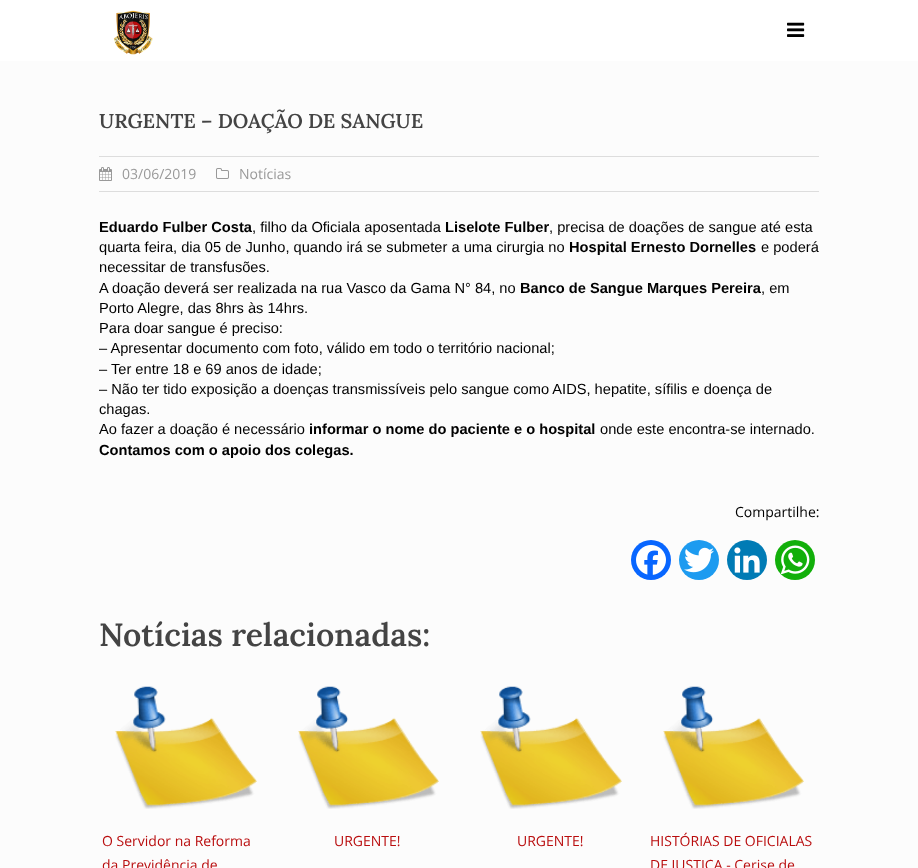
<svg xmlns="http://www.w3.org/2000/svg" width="918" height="868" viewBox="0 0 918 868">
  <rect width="100%" height="100%" fill="#fcfcfc"/>
  <rect x="0" y="0" width="918" height="61" fill="#ffffff"/>
  <image x="113" y="10" width="40" height="45" href="img1.png"/>
  <image x="787" y="22" width="18" height="15" href="img2.png"/>
  <text x="99" y="128" font-family="Lora" font-size="20" font-weight="600" fill="#444444">URGENTE – DOAÇÃO DE SANGUE</text>
  <rect x="99" y="156" width="720" height="1" fill="#dddddd"/>
  <rect x="99" y="191" width="720" height="1" fill="#dddddd"/>
  <image x="99" y="167" width="13" height="14" href="img3.png"/>
  <text x="122" y="179" font-family="Open Sans" font-size="14" fill="#999999">03/06/2019</text>
  <image x="216" y="168" width="13" height="11" href="img4.png"/>
  <text x="239" y="179" font-family="Open Sans" font-size="14" fill="#999999">Notícias</text>
  <text x="99" y="232" font-family="Liberation Sans" font-size="14.65" font-weight="bold" fill="#000000">Eduardo Fulber Costa</text>
  <text x="252" y="232" font-family="Liberation Sans" font-size="14.65" fill="#000000">, filho da Oficiala aposentada</text>
  <text x="445" y="232" font-family="Liberation Sans" font-size="14.65" font-weight="bold" fill="#000000">Liselote Fulber</text>
  <text x="549" y="232" font-family="Liberation Sans" font-size="14.65" fill="#000000">, precisa de doações de sangue até esta</text>
  <text x="99" y="252" font-family="Liberation Sans" font-size="14.65" fill="#000000">quarta feira, dia 05 de Junho, quando irá se submeter a uma cirurgia no</text>
  <text x="569" y="252" font-family="Liberation Sans" font-size="14.65" font-weight="bold" fill="#000000">Hospital Ernesto Dornelles</text>
  <text x="761" y="252" font-family="Liberation Sans" font-size="14.65" fill="#000000">e poderá</text>
  <text x="99" y="272" font-family="Liberation Sans" font-size="14.65" fill="#000000">necessitar de transfusões.</text>
  <text x="99" y="293" font-family="Liberation Sans" font-size="14.65" fill="#000000">A doação deverá ser realizada na rua Vasco da Gama N° 84, no</text>
  <text x="520" y="293" font-family="Liberation Sans" font-size="14.65" font-weight="bold" fill="#000000">Banco de Sangue Marques Pereira</text>
  <text x="761" y="293" font-family="Liberation Sans" font-size="14.65" fill="#000000">, em</text>
  <text x="99" y="313" font-family="Liberation Sans" font-size="14.65" fill="#000000">Porto Alegre, das 8hrs às 14hrs.</text>
  <text x="99" y="333" font-family="Liberation Sans" font-size="14.65" fill="#000000">Para doar sangue é preciso:</text>
  <text x="99" y="353" font-family="Liberation Sans" font-size="14.65" fill="#000000">– Apresentar documento com foto, válido em todo o território nacional;</text>
  <text x="99" y="374" font-family="Liberation Sans" font-size="14.65" fill="#000000">– Ter entre 18 e 69 anos de idade;</text>
  <text x="99" y="394" font-family="Liberation Sans" font-size="14.65" fill="#000000">– Não ter tido exposição a doenças transmissíveis pelo sangue como AIDS, hepatite, sífilis e doença de</text>
  <text x="99" y="414" font-family="Liberation Sans" font-size="14.65" fill="#000000">chagas.</text>
  <text x="99" y="434" font-family="Liberation Sans" font-size="14.65" fill="#000000">Ao fazer a doação é necessário</text>
  <text x="309" y="434" font-family="Liberation Sans" font-size="14.65" font-weight="bold" fill="#000000">informar o nome do paciente e o hospital</text>
  <text x="600" y="434" font-family="Liberation Sans" font-size="14.65" fill="#000000">onde este encontra-se internado.</text>
  <text x="99" y="455" font-family="Liberation Sans" font-size="14.65" font-weight="bold" fill="#000000">Contamos com o apoio dos colegas.</text>
  <text x="735" y="517" font-family="Open Sans" font-size="14" fill="#000000">Compartilhe:</text>
  <circle cx="651" cy="560" r="20" fill="#0866ff"/>
  <image x="636" y="545" width="30" height="30" href="img5.png"/>
  <circle cx="699" cy="560" r="20" fill="#1d9bf0"/>
  <image x="684" y="547" width="30" height="26" href="img6.png"/>
  <circle cx="747" cy="560" r="20" fill="#007bb5"/>
  <image x="734" y="547" width="26" height="26" href="img7.png"/>
  <circle cx="795" cy="560" r="20" fill="#12af0a"/>
  <image x="780" y="545" width="30" height="30" href="img8.png"/>
  <text x="99" y="646" font-family="Lora" font-size="32" font-weight="600" fill="#444444">Notícias relacionadas:</text>
  <image x="115" y="686" width="142" height="123" href="img9.png"/>
  <text x="102" y="846" font-family="Open Sans" font-size="14" fill="#b90d0e">O Servidor na Reforma</text>
  <text x="102" y="870" font-family="Open Sans" font-size="14" fill="#b90d0e">da Previdência de</text>
  <image x="298" y="686" width="141" height="123" href="img10.png"/>
  <text x="334" y="846" font-family="Open Sans" font-size="14" fill="#b90d0e">URGENTE!</text>
  <image x="480" y="686" width="142" height="123" href="img11.png"/>
  <text x="517" y="846" font-family="Open Sans" font-size="14" fill="#b90d0e">URGENTE!</text>
  <image x="663" y="686" width="141" height="123" href="img12.png"/>
  <text x="650" y="846" font-family="Open Sans" font-size="14" fill="#b90d0e">HISTÓRIAS DE OFICIALAS</text>
  <text x="650" y="870" font-family="Open Sans" font-size="14" fill="#b90d0e">DE JUSTIÇA - Cerise de</text>
</svg>
